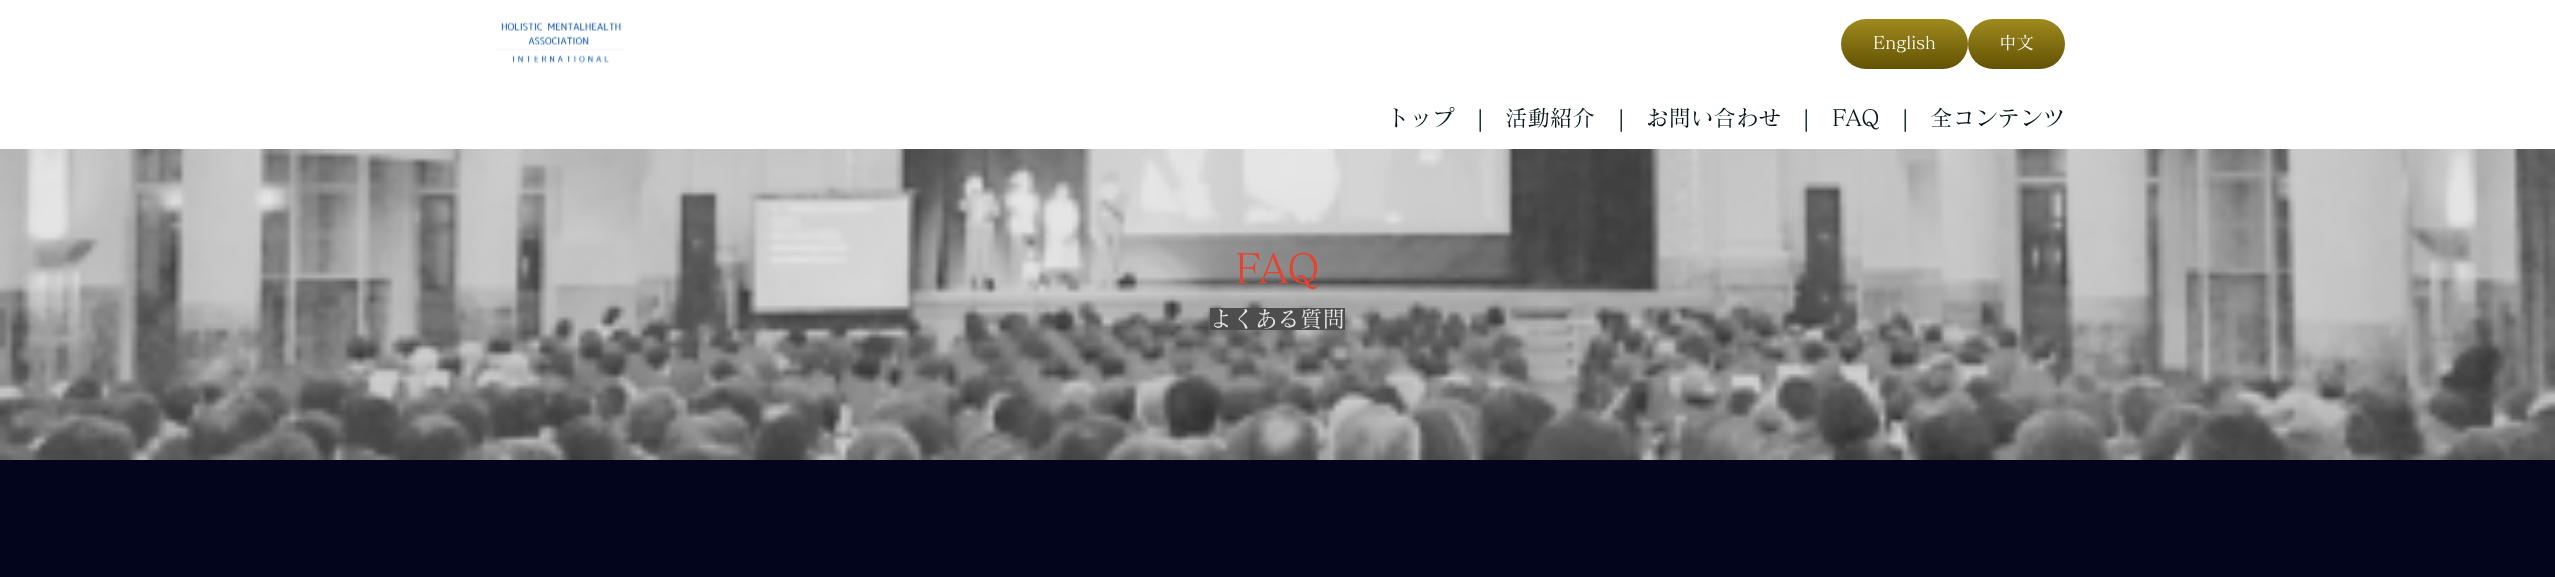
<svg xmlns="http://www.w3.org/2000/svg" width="2555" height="577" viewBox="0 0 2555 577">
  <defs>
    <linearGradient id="g1" gradientUnits="userSpaceOnUse" x1="1904" y1="69" x2="1904" y2="19"><stop offset="0" stop-color="#625203"/><stop offset="1" stop-color="#a08a1e"/></linearGradient>
    <linearGradient id="g2" gradientUnits="userSpaceOnUse" x1="2016" y1="69" x2="2016" y2="19"><stop offset="0" stop-color="#625203"/><stop offset="1" stop-color="#a08a1e"/></linearGradient>
  </defs>
  <rect width="100%" height="100%" fill="#03051c"/>
  <rect x="0" y="0" width="2555" height="149" fill="#ffffff"/>
  <image x="496" y="22" width="129" height="41" href="img1.png"/>
  <rect x="1841" y="19" width="127" height="50" rx="25" fill="url(#g1)"/>
  <text x="1873" y="49" font-family="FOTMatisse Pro" font-size="17.5" font-weight="500" fill="#ffffff">English</text>
  <rect x="1968" y="19" width="97" height="50" rx="25" fill="url(#g2)"/>
  <text x="1999" y="49" font-family="FOTMatisse Pro" font-size="17.5" font-weight="500" fill="#ffffff">中文</text>
  <text x="1387" y="126" font-family="FOTMatisse Pro" font-size="22.5" font-weight="500" fill="#05161a">トップ</text>
  <text x="1469" y="126" font-family="WenQuanYi Zen Hei" font-size="22.5" font-weight="500" fill="#05161a">｜</text>
  <text x="1505" y="126" font-family="FOTMatisse Pro" font-size="22.5" font-weight="500" fill="#05161a">活動紹介</text>
  <text x="1610" y="126" font-family="WenQuanYi Zen Hei" font-size="22.5" font-weight="500" fill="#05161a">｜</text>
  <text x="1646" y="126" font-family="FOTMatisse Pro" font-size="22.5" font-weight="500" fill="#05161a">お問い合わせ</text>
  <text x="1795" y="126" font-family="WenQuanYi Zen Hei" font-size="22.5" font-weight="500" fill="#05161a">｜</text>
  <text x="1832" y="126" font-family="FOTMatisse Pro" font-size="22.5" font-weight="500" fill="#05161a">FAQ</text>
  <text x="1894" y="126" font-family="WenQuanYi Zen Hei" font-size="22.5" font-weight="500" fill="#05161a">｜</text>
  <text x="1930" y="126" font-family="FOTMatisse Pro" font-size="22.5" font-weight="500" fill="#05161a">全コンテンツ</text>
  <image x="0" y="149" width="2555" height="311" href="img2.png"/>
  <text x="1235" y="283" font-family="FOTMatisse Pro" font-size="40" font-weight="500" fill="#e8412e">FAQ</text>
  <rect x="1210" y="308" width="135" height="22" fill="#4d4d4d"/>
  <text x="1210" y="327" font-family="FOTMatisse Pro" font-size="22.5" font-weight="500" fill="#e7e7e7">よくある質問</text>
</svg>
